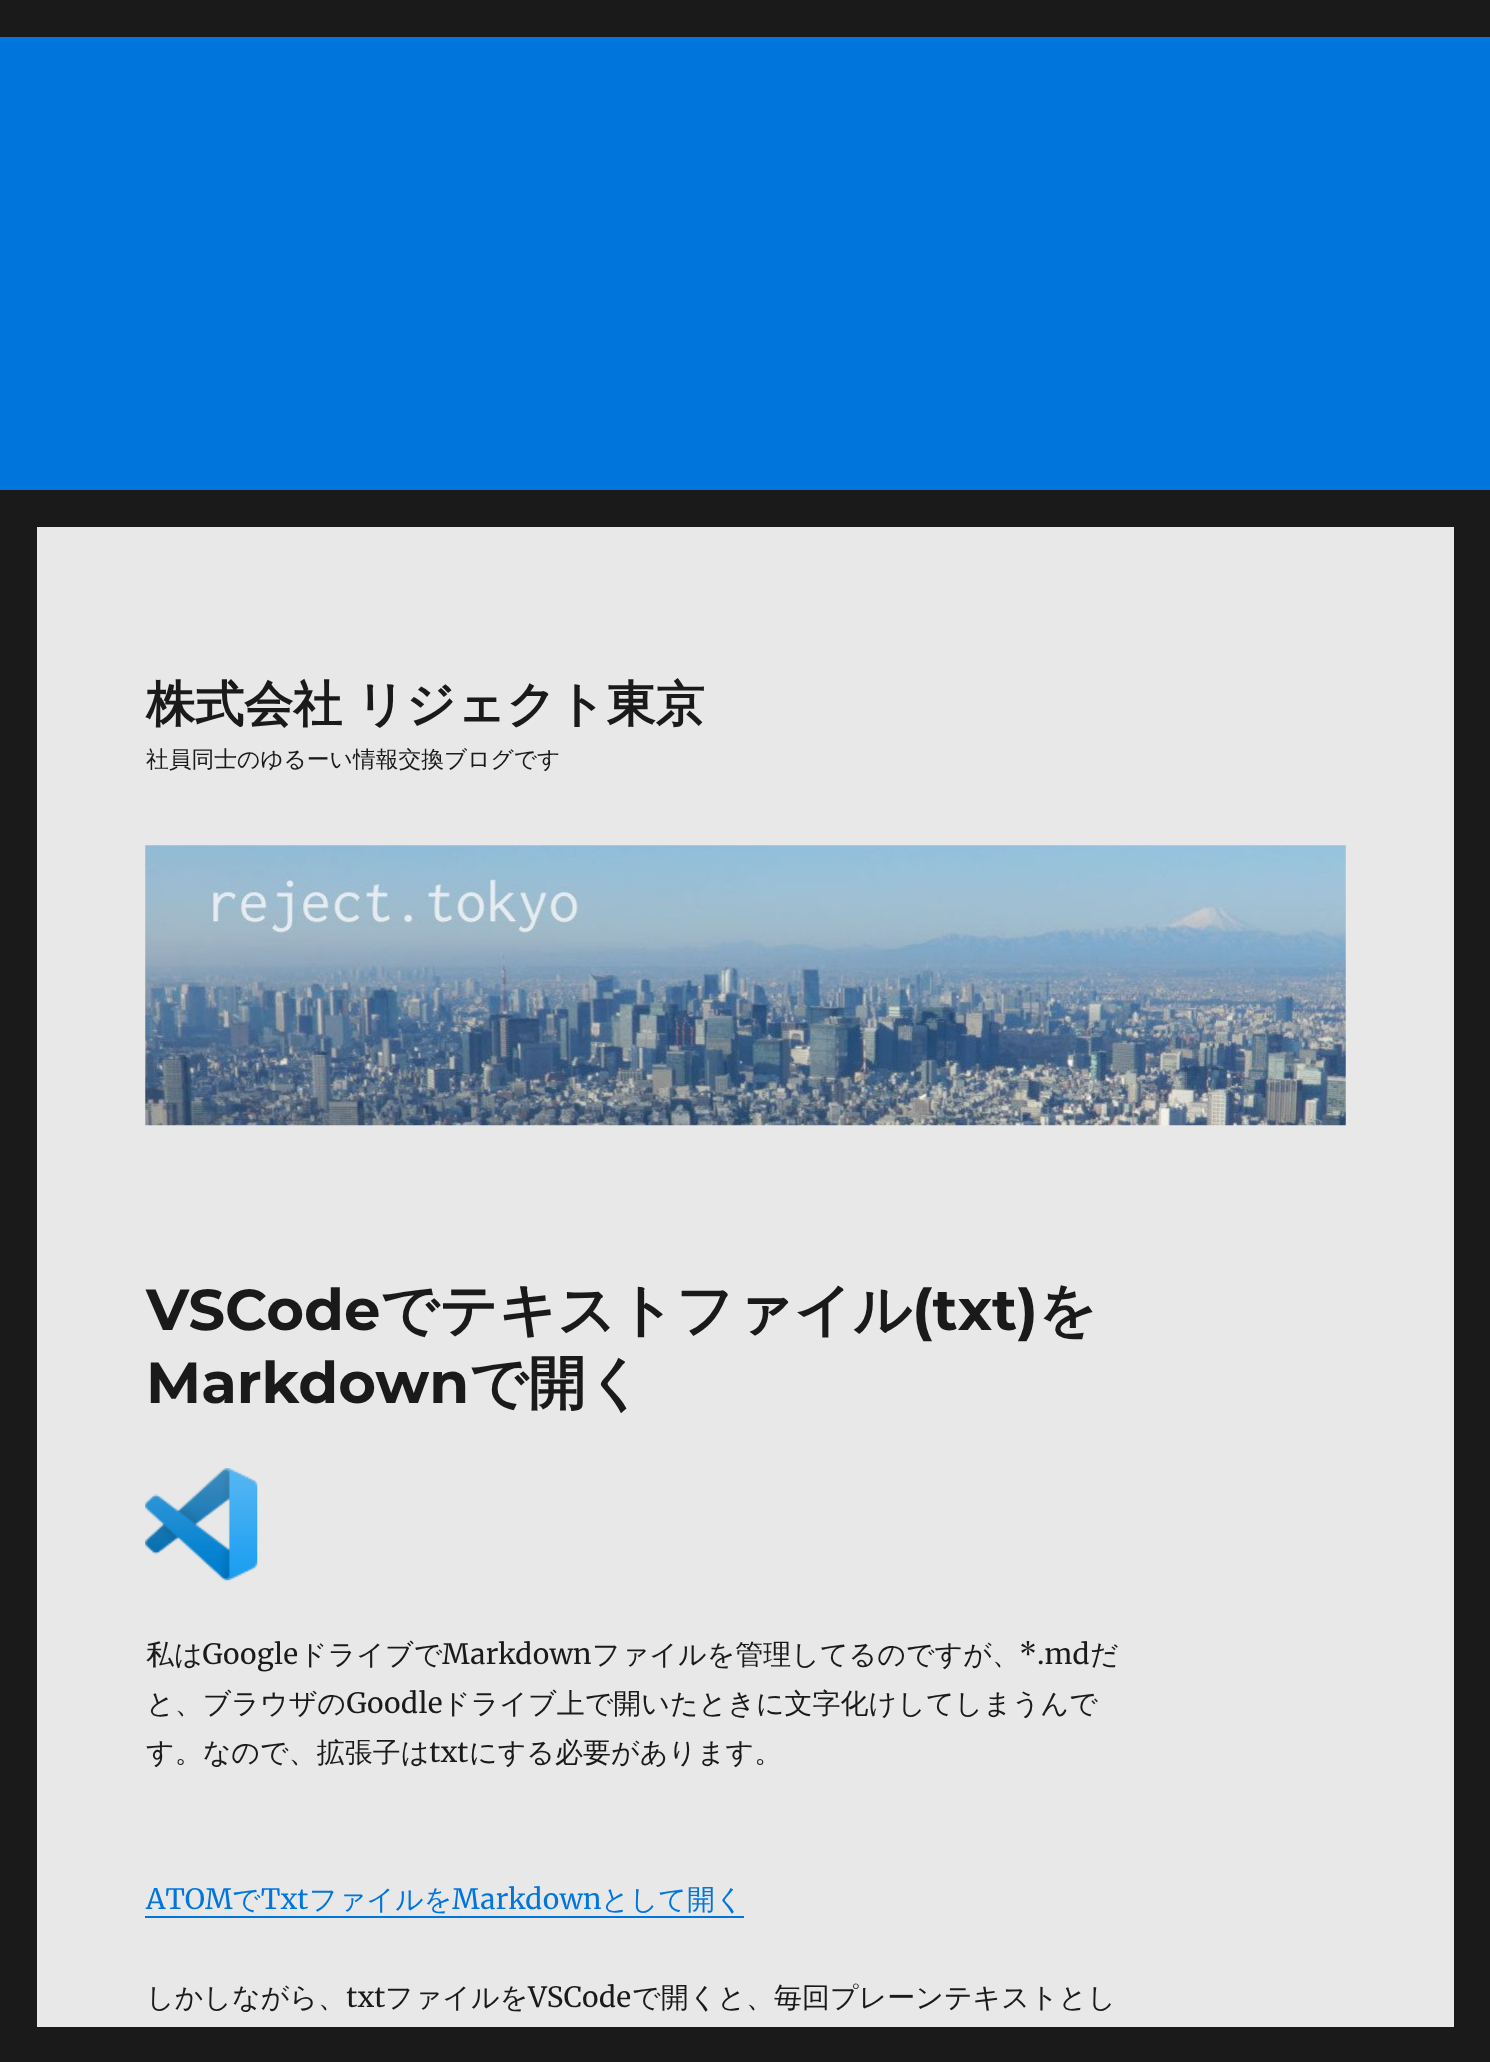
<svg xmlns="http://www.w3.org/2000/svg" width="1490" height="2062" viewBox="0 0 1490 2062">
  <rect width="100%" height="100%" fill="#1a1a1a"/>
  <rect x="0" y="37" width="1490" height="453" fill="#0076dd"/>
  <rect x="37" y="527" width="1417" height="1500" fill="#e8e8e8"/>
  <text x="146" y="721" word-spacing="-1" font-family="WenQuanYi Zen Hei" font-size="49" font-weight="bold" fill="#1a1a1a">株式会社 リジェクト東京</text>
  <text x="146" y="767" font-family="WenQuanYi Zen Hei" font-size="22.75" font-weight="500" fill="#1a1a1a">社員同士のゆるーい情報交換ブログです</text>
  <image x="145" y="845" width="1201" height="281" href="img1.png"/>
  <text x="146" y="1330" font-family="Montserrat" font-size="57.75" font-weight="100" fill="#1a1a1a">VSCode</text>
  <text x="380" y="1330" font-family="WenQuanYi Zen Hei" font-size="57.75" font-weight="bold" fill="#1a1a1a">でテキストファイル</text>
  <text x="912" y="1330" font-family="Montserrat" font-size="57.75" font-weight="100" fill="#1a1a1a">(txt)</text>
  <text x="1038" y="1330" font-family="WenQuanYi Zen Hei" font-size="57.75" font-weight="bold" fill="#1a1a1a">を</text>
  <text x="146" y="1403" font-family="Montserrat" font-size="57.75" font-weight="100" fill="#1a1a1a">Markdown</text>
  <text x="469" y="1403" font-family="WenQuanYi Zen Hei" font-size="57.75" font-weight="bold" fill="#1a1a1a">で開く</text>
  <image x="145" y="1468" width="113" height="113" href="img2.png"/>
  <text x="146" y="1664" font-family="WenQuanYi Zen Hei" font-size="28" font-weight="500" fill="#1a1a1a">私は</text>
  <text x="202" y="1664" font-family="Merriweather" font-size="28" fill="#1a1a1a">Google</text>
  <text x="299" y="1664" font-family="WenQuanYi Zen Hei" font-size="28" font-weight="500" fill="#1a1a1a">ドライブで</text>
  <text x="442" y="1664" font-family="Merriweather" font-size="28" fill="#1a1a1a">Markdown</text>
  <text x="592" y="1664" font-family="WenQuanYi Zen Hei" font-size="28" font-weight="500" fill="#1a1a1a">ファイルを管理してるのですが、</text>
  <text x="1019" y="1664" font-family="Merriweather" font-size="28" fill="#1a1a1a">*.md</text>
  <text x="1090" y="1664" font-family="WenQuanYi Zen Hei" font-size="28" font-weight="500" fill="#1a1a1a">だ</text>
  <text x="146" y="1713" font-family="WenQuanYi Zen Hei" font-size="28" font-weight="500" fill="#1a1a1a">と、ブラウザの</text>
  <text x="346" y="1713" font-family="Merriweather" font-size="28" fill="#1a1a1a">Goodle</text>
  <text x="442" y="1713" font-family="WenQuanYi Zen Hei" font-size="28" font-weight="500" fill="#1a1a1a">ドライブ上で開いたときに文字化けしてしまうんで</text>
  <text x="146" y="1762" font-family="WenQuanYi Zen Hei" font-size="28" font-weight="500" fill="#1a1a1a">す。なので、拡張子は</text>
  <text x="429" y="1762" font-family="Merriweather" font-size="28" fill="#1a1a1a">txt</text>
  <text x="469" y="1762" font-family="WenQuanYi Zen Hei" font-size="28" font-weight="500" fill="#1a1a1a">にする必要があります。</text>
  <text x="146" y="1909" font-family="Merriweather" font-size="28" fill="#0076dd">ATOM</text>
  <text x="232" y="1909" font-family="WenQuanYi Zen Hei" font-size="28" font-weight="500" fill="#0076dd">で</text>
  <path d="M145 1883V1918H744V1883V1916H145Z" fill="#0076dd"/>
  <text x="261" y="1909" font-family="Merriweather" font-size="28" fill="#0076dd">Txt</text>
  <text x="309" y="1909" font-family="WenQuanYi Zen Hei" font-size="28" font-weight="500" fill="#0076dd">ファイルを</text>
  <text x="452" y="1909" font-family="Merriweather" font-size="28" fill="#0076dd">Markdown</text>
  <text x="601" y="1909" font-family="WenQuanYi Zen Hei" font-size="28" font-weight="500" fill="#0076dd">として開く</text>
  <text x="146" y="2007" font-family="WenQuanYi Zen Hei" font-size="28" font-weight="500" fill="#1a1a1a">しかしながら、</text>
  <text x="346" y="2007" font-family="Merriweather" font-size="28" fill="#1a1a1a">txt</text>
  <text x="385" y="2007" font-family="WenQuanYi Zen Hei" font-size="28" font-weight="500" fill="#1a1a1a">ファイルを</text>
  <text x="528" y="2007" font-family="Merriweather" font-size="28" fill="#1a1a1a">VSCode</text>
  <text x="632" y="2007" font-family="WenQuanYi Zen Hei" font-size="28" font-weight="500" fill="#1a1a1a">で開くと、毎回プレーンテキストとし</text>
</svg>
